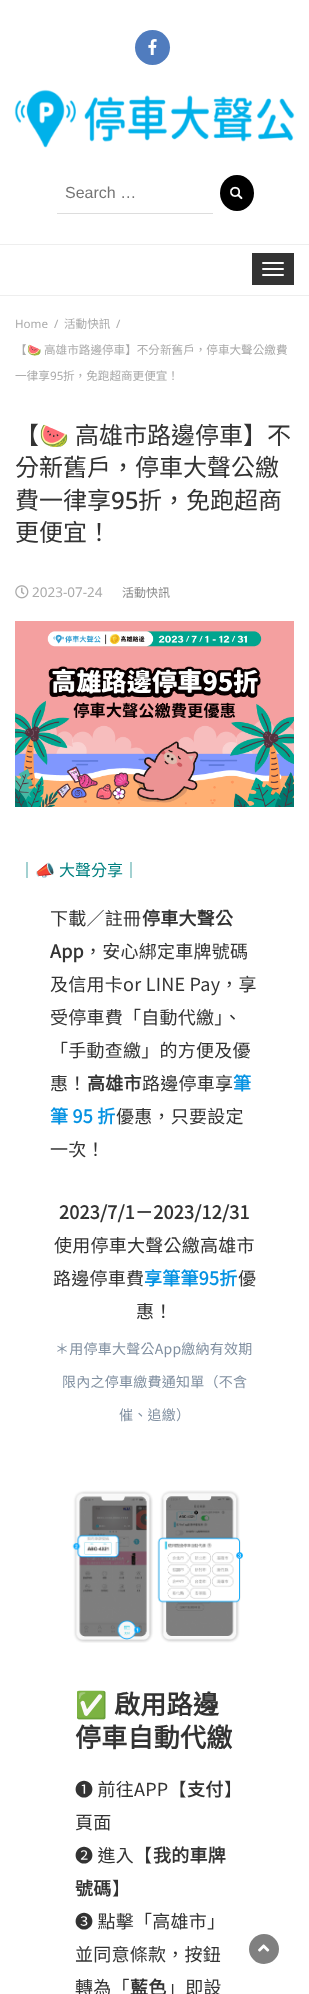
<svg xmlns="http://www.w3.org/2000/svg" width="309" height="1994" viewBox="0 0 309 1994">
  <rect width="100%" height="100%" fill="#ffffff"/>
  <circle cx="152.5" cy="47.5" r="17.5" fill="#507cbe"/>
  <image x="148" y="39" width="9" height="16" href="img1.png"/>
  <image x="14" y="89" width="281" height="59" href="img2.png"/>
  <rect x="57" y="213" width="156" height="1" fill="#dddddd"/>
  <text x="65" y="198" font-family="Liberation Sans" font-size="16" fill="#757575">Search …</text>
  <ellipse cx="237" cy="193" rx="17" ry="18" fill="#000000"/>
  <image x="230" y="186" width="13" height="14" href="img3.png"/>
  <rect x="0" y="244" width="309" height="1" fill="#eeeeee"/>
  <rect x="0" y="295" width="309" height="1" fill="#eeeeee"/>
  <rect x="252" y="253" width="42" height="32" fill="#333333"/>
  <rect x="262" y="262" width="22" height="2" rx="1" fill="#ffffff"/>
  <rect x="262" y="268" width="22" height="2" rx="1" fill="#ffffff"/>
  <rect x="262" y="274" width="22" height="2" rx="1" fill="#ffffff"/>
  <text x="15" y="328" font-family="Noto Sans" font-size="11.6" fill="#aaaaaa">Home</text>
  <text x="54" y="328" font-family="Noto Sans" font-size="11.6" fill="#aaaaaa">/</text>
  <text x="64" y="328" font-family="Noto Sans CJK TC" font-size="11.6" fill="#aaaaaa">活動快訊</text>
  <text x="116" y="328" font-family="Noto Sans" font-size="11.6" fill="#aaaaaa">/</text>
  <text x="15" y="354" font-family="Noto Sans CJK TC" font-size="11.6" fill="#aaaaaa">【</text>
  <text x="27" y="354" font-family="Noto Color Emoji" font-size="11.6" fill="#aaaaaa">🍉</text>
  <text x="44" y="354" font-family="Noto Sans CJK TC" font-size="11.6" fill="#aaaaaa">高雄市路邊停車】不分新舊戶，停車大聲公繳費</text>
  <text x="15" y="380" font-family="Noto Sans CJK TC" font-size="11.6" fill="#aaaaaa">一律享</text>
  <text x="50" y="380" font-family="Noto Sans" font-size="11.6" fill="#aaaaaa">95</text>
  <text x="63" y="380" font-family="Noto Sans CJK TC" font-size="11.6" fill="#aaaaaa">折，免跑超商更便宜！</text>
  <text x="15" y="444" font-family="Noto Sans CJK TC" font-size="24" fill="#333333">【</text>
  <text x="39" y="444" font-family="Noto Color Emoji" font-size="24" fill="#333333">🍉</text>
  <text x="75" y="444" font-family="Noto Sans CJK TC" font-size="24" fill="#333333">高雄市路邊停車】不</text>
  <text x="15" y="476" font-family="Noto Sans CJK TC" font-size="24" fill="#333333">分新舊戶，停車大聲公繳</text>
  <text x="15" y="509" font-family="Noto Sans CJK TC" font-size="24" fill="#333333">費一律享</text>
  <text x="111" y="509" font-family="Noto Sans" font-size="24" font-weight="500" fill="#333333">95</text>
  <text x="138" y="509" font-family="Noto Sans CJK TC" font-size="24" fill="#333333">折，免跑超商</text>
  <text x="15" y="541" font-family="Noto Sans CJK TC" font-size="24" fill="#333333">更便宜！</text>
  <image x="15" y="585" width="14" height="14" href="img4.png"/>
  <text x="32" y="597" font-family="Noto Sans" font-size="13.5" fill="#aaaaaa">2023-07-24</text>
  <text x="122" y="597" font-family="Noto Sans CJK TC" font-size="12" fill="#888888">活動快訊</text>
  <image x="15" y="621" width="279" height="186" href="img5.png"/>
  <text x="19" y="876" font-family="Noto Sans CJK TC" font-size="16" fill="#008080">｜</text>
  <text x="35" y="876" font-family="Noto Color Emoji" font-size="16" fill="#008080">📣</text>
  <text x="59" y="876" font-family="Noto Sans CJK TC" font-size="16" fill="#008080">大聲分享｜</text>
  <text x="50" y="925" font-family="Noto Sans TC" font-size="18" font-weight="100" letter-spacing="0.25" fill="#333333">下載／註冊</text>
  <text x="142" y="925" font-family="Noto Sans TC" font-size="18" font-weight="bold" letter-spacing="0.25" fill="#333333">停車大聲公</text>
  <text x="50" y="958" font-family="Noto Sans TC" font-size="18" font-weight="bold" letter-spacing="0.25" fill="#333333">App</text>
  <text x="84" y="958" font-family="Noto Sans TC" font-size="18" font-weight="100" letter-spacing="0.25" fill="#333333">，安心綁定車牌號碼</text>
  <text x="50" y="991" font-family="Noto Sans TC" font-size="18" font-weight="100" letter-spacing="0.25" fill="#333333">及信用卡or LINE Pay，享</text>
  <text x="50" y="1024" font-family="Noto Sans TC" font-size="18" font-weight="100" letter-spacing="0.25" fill="#333333">受停車費「自動代繳」、</text>
  <text x="50" y="1057" font-family="Noto Sans TC" font-size="18" font-weight="100" letter-spacing="0.25" fill="#333333">「手動查繳」的方便及優</text>
  <text x="50" y="1090" font-family="Noto Sans TC" font-size="18" font-weight="100" letter-spacing="0.25" fill="#333333">惠！</text>
  <text x="87" y="1090" font-family="Noto Sans TC" font-size="18" font-weight="bold" letter-spacing="0.25" fill="#333333">高雄市</text>
  <text x="142" y="1090" font-family="Noto Sans TC" font-size="18" font-weight="100" letter-spacing="0.25" fill="#333333">路邊停車享</text>
  <text x="233" y="1090" font-family="Noto Sans TC" font-size="18" font-weight="bold" letter-spacing="0.25" fill="#0693e3">筆</text>
  <text x="50" y="1123" font-family="Noto Sans TC" font-size="18" font-weight="bold" letter-spacing="0.25" fill="#0693e3">筆 95 折</text>
  <text x="116" y="1123" font-family="Noto Sans TC" font-size="18" font-weight="100" letter-spacing="0.25" fill="#333333">優惠，只要設定</text>
  <text x="50" y="1156" font-family="Noto Sans TC" font-size="18" font-weight="100" letter-spacing="0.25" fill="#333333">一次！</text>
  <text x="59" y="1219" font-family="Noto Sans TC" font-size="18" font-weight="bold" letter-spacing="0.25" fill="#333333">2023/7/1－2023/12/31</text>
  <text x="54" y="1252" font-family="Noto Sans TC" font-size="18" font-weight="100" letter-spacing="0.25" fill="#333333">使用停車大聲公繳高雄市</text>
  <text x="53" y="1285" font-family="Noto Sans TC" font-size="18" font-weight="100" letter-spacing="0.25" fill="#333333">路邊停車費</text>
  <text x="144" y="1285" font-family="Noto Sans TC" font-size="18" font-weight="bold" letter-spacing="0.25" fill="#0693e3">享筆筆95折</text>
  <text x="238" y="1285" font-family="Noto Sans TC" font-size="18" font-weight="100" letter-spacing="0.25" fill="#333333">優</text>
  <text x="136" y="1318" font-family="Noto Sans TC" font-size="18" font-weight="100" letter-spacing="0.25" fill="#333333">惠！</text>
  <text x="55" y="1354" font-family="Noto Sans TC" font-size="14" font-weight="100" letter-spacing="0.25" fill="#8190a1">＊用停車大聲公App繳納有效期</text>
  <text x="62" y="1387" font-family="Noto Sans TC" font-size="14" font-weight="100" letter-spacing="0.25" fill="#8190a1">限內之停車繳費通知單（不含</text>
  <text x="119" y="1420" font-family="Noto Sans TC" font-size="14" font-weight="100" letter-spacing="0.25" fill="#8190a1">催、追繳）</text>
  <image x="72" y="1490" width="171" height="153" href="img6.png"/>
  <text x="75" y="1714" font-family="Noto Color Emoji" font-size="26" letter-spacing="0.25" fill="#333333">✅</text>
  <text x="114" y="1714" font-family="Noto Sans TC" font-size="26" font-weight="bold" letter-spacing="0.25" fill="#333333">啟用路邊</text>
  <text x="75" y="1747" font-family="Noto Sans TC" font-size="26" font-weight="bold" letter-spacing="0.25" fill="#333333">停車自動代繳</text>
  <text x="75" y="1796" font-family="Noto Sans TC" font-size="18" font-weight="100" letter-spacing="0.25" fill="#333333">➊ 前往APP【</text>
  <text x="187" y="1796" font-family="Noto Sans TC" font-size="18" font-weight="bold" letter-spacing="0.25" fill="#333333">支付</text>
  <text x="224" y="1796" font-family="Noto Sans TC" font-size="18" font-weight="100" letter-spacing="0.25" fill="#333333">】</text>
  <text x="75" y="1829" font-family="Noto Sans TC" font-size="18" font-weight="100" letter-spacing="0.25" fill="#333333">頁面</text>
  <text x="75" y="1862" font-family="Noto Sans TC" font-size="18" font-weight="100" letter-spacing="0.25" fill="#333333">➋ 進入【</text>
  <text x="153" y="1862" font-family="Noto Sans TC" font-size="18" font-weight="bold" letter-spacing="0.25" fill="#333333">我的車牌</text>
  <text x="75" y="1895" font-family="Noto Sans TC" font-size="18" font-weight="bold" letter-spacing="0.25" fill="#333333">號碼</text>
  <text x="112" y="1895" font-family="Noto Sans TC" font-size="18" font-weight="100" letter-spacing="0.25" fill="#333333">】</text>
  <text x="75" y="1928" font-family="Noto Sans TC" font-size="18" font-weight="100" letter-spacing="0.25" fill="#333333">❸ 點擊「高雄市」</text>
  <text x="75" y="1961" font-family="Noto Sans TC" font-size="18" font-weight="100" letter-spacing="0.25" fill="#333333">並同意條款，按鈕</text>
  <text x="75" y="1994" font-family="Noto Sans TC" font-size="18" font-weight="100" letter-spacing="0.25" fill="#333333">轉為「</text>
  <text x="130" y="1994" font-family="Noto Sans TC" font-size="18" font-weight="bold" letter-spacing="0.25" fill="#333333">藍色</text>
  <text x="167" y="1994" font-family="Noto Sans TC" font-size="18" font-weight="100" letter-spacing="0.25" fill="#333333">」即設</text>
  <circle cx="264" cy="1949" r="15" fill="#808080"/>
  <image x="258" y="1944" width="12" height="8" href="img7.png"/>
</svg>
